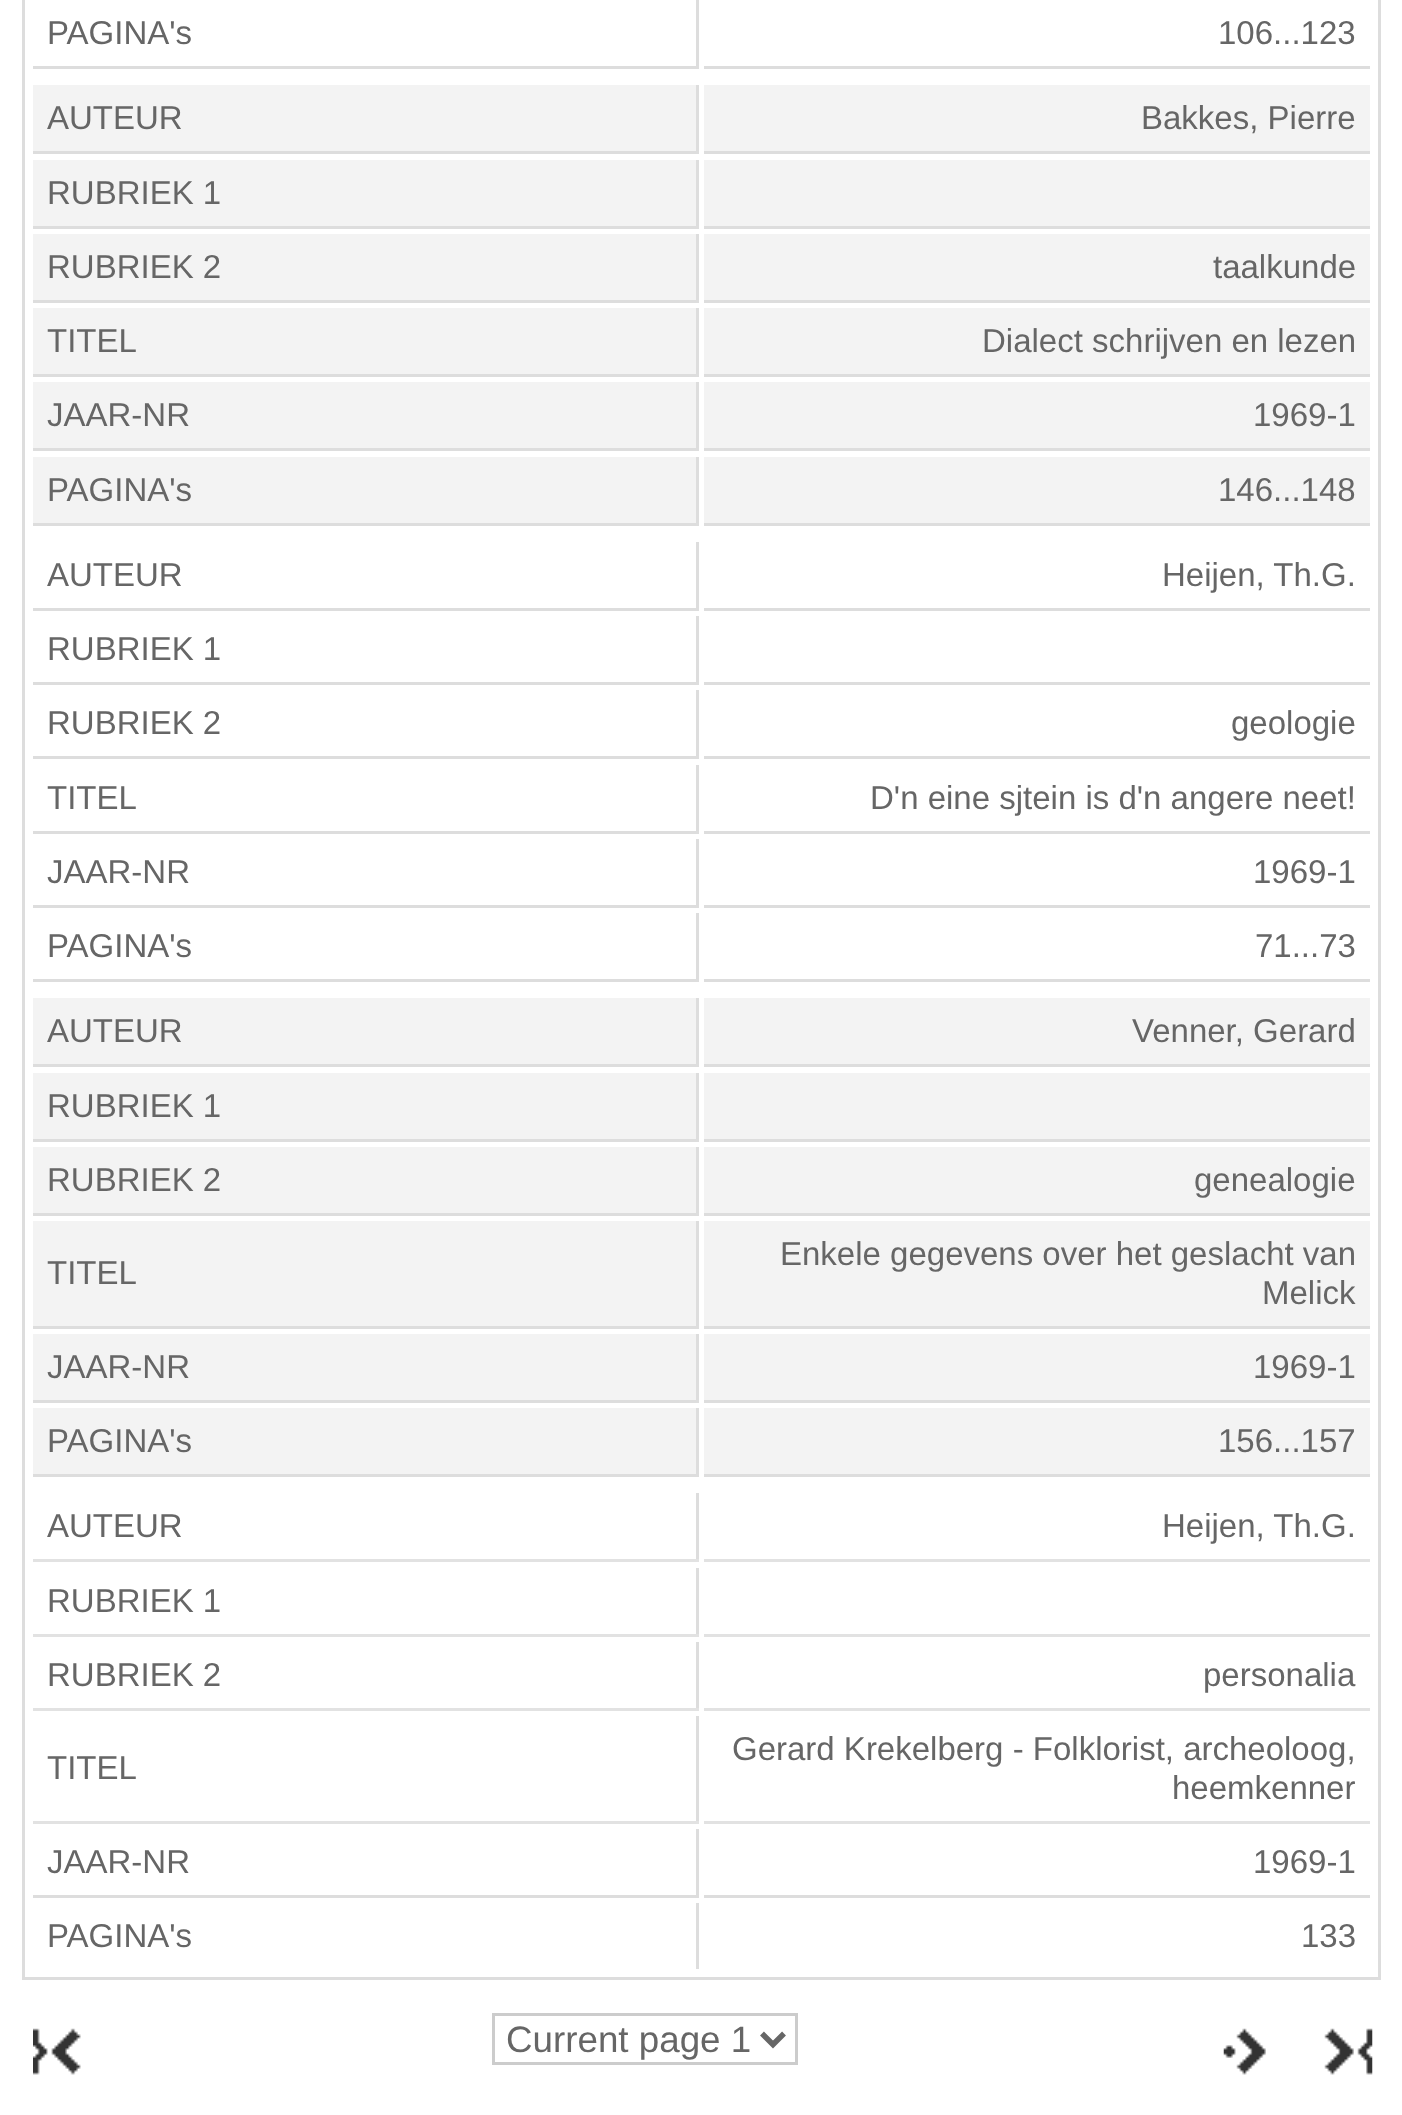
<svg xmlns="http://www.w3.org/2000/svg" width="1402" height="2115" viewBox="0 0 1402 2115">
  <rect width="100%" height="100%" fill="#ffffff"/>
  <rect x="1378" y="0" width="3" height="1980" fill="#dddddd"/>
  <rect x="22" y="1977" width="1359" height="3" fill="#dddddd"/>
  <rect x="22" y="0" width="3" height="1980" fill="#dddddd"/>
  <rect x="696" y="0" width="3" height="69" fill="#dddddd"/>
  <rect x="33" y="66" width="666" height="3" fill="#dddddd"/>
  <text x="47" y="44" font-family="Liberation Sans" font-size="33" fill="#666666">PAGINA's</text>
  <rect x="704" y="66" width="666" height="3" fill="#dddddd"/>
  <text x="1218" y="44" font-family="Liberation Sans" font-size="33" fill="#666666">106...123</text>
  <rect x="33" y="85" width="663" height="66" fill="#f3f3f3"/>
  <rect x="696" y="85" width="3" height="69" fill="#dddddd"/>
  <rect x="33" y="151" width="666" height="3" fill="#dddddd"/>
  <text x="47" y="129" font-family="Liberation Sans" font-size="33" fill="#666666">AUTEUR</text>
  <rect x="704" y="85" width="666" height="66" fill="#f3f3f3"/>
  <rect x="704" y="151" width="666" height="3" fill="#dddddd"/>
  <text x="1141" y="129" font-family="Liberation Sans" font-size="33" fill="#666666">Bakkes, Pierre</text>
  <rect x="33" y="160" width="663" height="66" fill="#f3f3f3"/>
  <rect x="696" y="160" width="3" height="68" fill="#dddddd"/>
  <rect x="33" y="226" width="666" height="3" fill="#dddddd"/>
  <text x="47" y="204" font-family="Liberation Sans" font-size="33" fill="#666666">RUBRIEK 1</text>
  <rect x="704" y="160" width="666" height="66" fill="#f3f3f3"/>
  <rect x="704" y="226" width="666" height="3" fill="#dddddd"/>
  <rect x="33" y="234" width="663" height="66" fill="#f3f3f3"/>
  <rect x="696" y="234" width="3" height="69" fill="#dddddd"/>
  <rect x="33" y="300" width="666" height="3" fill="#dddddd"/>
  <text x="47" y="278" font-family="Liberation Sans" font-size="33" fill="#666666">RUBRIEK 2</text>
  <rect x="704" y="234" width="666" height="66" fill="#f3f3f3"/>
  <rect x="704" y="300" width="666" height="3" fill="#dddddd"/>
  <text x="1213" y="278" font-family="Liberation Sans" font-size="33" fill="#666666">taalkunde</text>
  <rect x="33" y="308" width="663" height="66" fill="#f3f3f3"/>
  <rect x="696" y="308" width="3" height="69" fill="#dddddd"/>
  <rect x="33" y="374" width="666" height="3" fill="#dddddd"/>
  <text x="47" y="352" font-family="Liberation Sans" font-size="33" fill="#666666">TITEL</text>
  <rect x="704" y="308" width="666" height="66" fill="#f3f3f3"/>
  <rect x="704" y="374" width="666" height="3" fill="#dddddd"/>
  <text x="982" y="352" font-family="Liberation Sans" font-size="33" fill="#666666">Dialect schrijven en lezen</text>
  <rect x="33" y="382" width="663" height="66" fill="#f3f3f3"/>
  <rect x="696" y="382" width="3" height="69" fill="#dddddd"/>
  <rect x="33" y="448" width="666" height="3" fill="#dddddd"/>
  <text x="47" y="426" font-family="Liberation Sans" font-size="33" fill="#666666">JAAR-NR</text>
  <rect x="704" y="382" width="666" height="66" fill="#f3f3f3"/>
  <rect x="704" y="448" width="666" height="3" fill="#dddddd"/>
  <text x="1253" y="426" font-family="Liberation Sans" font-size="33" fill="#666666">1969-1</text>
  <rect x="33" y="457" width="663" height="66" fill="#f3f3f3"/>
  <rect x="696" y="457" width="3" height="68" fill="#dddddd"/>
  <rect x="33" y="523" width="666" height="3" fill="#dddddd"/>
  <text x="47" y="501" font-family="Liberation Sans" font-size="33" fill="#666666">PAGINA's</text>
  <rect x="704" y="457" width="666" height="66" fill="#f3f3f3"/>
  <rect x="704" y="523" width="666" height="3" fill="#dddddd"/>
  <text x="1218" y="501" font-family="Liberation Sans" font-size="33" fill="#666666">146...148</text>
  <rect x="696" y="542" width="3" height="69" fill="#dddddd"/>
  <rect x="33" y="608" width="666" height="3" fill="#dddddd"/>
  <text x="47" y="586" font-family="Liberation Sans" font-size="33" fill="#666666">AUTEUR</text>
  <rect x="704" y="608" width="666" height="3" fill="#dddddd"/>
  <text x="1162" y="586" font-family="Liberation Sans" font-size="33" fill="#666666">Heijen, Th.G.</text>
  <rect x="696" y="616" width="3" height="69" fill="#dddddd"/>
  <rect x="33" y="682" width="666" height="3" fill="#dddddd"/>
  <text x="47" y="660" font-family="Liberation Sans" font-size="33" fill="#666666">RUBRIEK 1</text>
  <rect x="704" y="682" width="666" height="3" fill="#dddddd"/>
  <rect x="696" y="690" width="3" height="69" fill="#dddddd"/>
  <rect x="33" y="756" width="666" height="3" fill="#dddddd"/>
  <text x="47" y="734" font-family="Liberation Sans" font-size="33" fill="#666666">RUBRIEK 2</text>
  <rect x="704" y="756" width="666" height="3" fill="#dddddd"/>
  <text x="1231" y="734" font-family="Liberation Sans" font-size="33" fill="#666666">geologie</text>
  <rect x="696" y="765" width="3" height="68" fill="#dddddd"/>
  <rect x="33" y="831" width="666" height="3" fill="#dddddd"/>
  <text x="47" y="809" font-family="Liberation Sans" font-size="33" fill="#666666">TITEL</text>
  <rect x="704" y="831" width="666" height="3" fill="#dddddd"/>
  <text x="870" y="809" font-family="Liberation Sans" font-size="33" fill="#666666">D'n eine sjtein is d'n angere neet!</text>
  <rect x="696" y="839" width="3" height="69" fill="#dddddd"/>
  <rect x="33" y="905" width="666" height="3" fill="#dddddd"/>
  <text x="47" y="883" font-family="Liberation Sans" font-size="33" fill="#666666">JAAR-NR</text>
  <rect x="704" y="905" width="666" height="3" fill="#dddddd"/>
  <text x="1253" y="883" font-family="Liberation Sans" font-size="33" fill="#666666">1969-1</text>
  <rect x="696" y="913" width="3" height="69" fill="#dddddd"/>
  <rect x="33" y="979" width="666" height="3" fill="#dddddd"/>
  <text x="47" y="957" font-family="Liberation Sans" font-size="33" fill="#666666">PAGINA's</text>
  <rect x="704" y="979" width="666" height="3" fill="#dddddd"/>
  <text x="1255" y="957" font-family="Liberation Sans" font-size="33" fill="#666666">71...73</text>
  <rect x="33" y="998" width="663" height="66" fill="#f3f3f3"/>
  <rect x="696" y="998" width="3" height="69" fill="#dddddd"/>
  <rect x="33" y="1064" width="666" height="3" fill="#dddddd"/>
  <text x="47" y="1042" font-family="Liberation Sans" font-size="33" fill="#666666">AUTEUR</text>
  <rect x="704" y="998" width="666" height="66" fill="#f3f3f3"/>
  <rect x="704" y="1064" width="666" height="3" fill="#dddddd"/>
  <text x="1132" y="1042" font-family="Liberation Sans" font-size="33" fill="#666666">Venner, Gerard</text>
  <rect x="33" y="1073" width="663" height="66" fill="#f3f3f3"/>
  <rect x="696" y="1073" width="3" height="68" fill="#dddddd"/>
  <rect x="33" y="1139" width="666" height="3" fill="#dddddd"/>
  <text x="47" y="1117" font-family="Liberation Sans" font-size="33" fill="#666666">RUBRIEK 1</text>
  <rect x="704" y="1073" width="666" height="66" fill="#f3f3f3"/>
  <rect x="704" y="1139" width="666" height="3" fill="#dddddd"/>
  <rect x="33" y="1147" width="663" height="66" fill="#f3f3f3"/>
  <rect x="696" y="1147" width="3" height="69" fill="#dddddd"/>
  <rect x="33" y="1213" width="666" height="3" fill="#dddddd"/>
  <text x="47" y="1191" font-family="Liberation Sans" font-size="33" fill="#666666">RUBRIEK 2</text>
  <rect x="704" y="1147" width="666" height="66" fill="#f3f3f3"/>
  <rect x="704" y="1213" width="666" height="3" fill="#dddddd"/>
  <text x="1194" y="1191" font-family="Liberation Sans" font-size="33" fill="#666666">genealogie</text>
  <rect x="33" y="1221" width="663" height="105" fill="#f3f3f3"/>
  <rect x="696" y="1221" width="3" height="107" fill="#dddddd"/>
  <rect x="33" y="1326" width="666" height="3" fill="#dddddd"/>
  <text x="47" y="1284" font-family="Liberation Sans" font-size="33" fill="#666666">TITEL</text>
  <rect x="704" y="1221" width="666" height="105" fill="#f3f3f3"/>
  <rect x="704" y="1326" width="666" height="3" fill="#dddddd"/>
  <text x="780" y="1265" font-family="Liberation Sans" font-size="33" fill="#666666">Enkele gegevens over het geslacht van</text>
  <text x="1262" y="1304" font-family="Liberation Sans" font-size="33" fill="#666666">Melick</text>
  <rect x="33" y="1334" width="663" height="66" fill="#f3f3f3"/>
  <rect x="696" y="1334" width="3" height="69" fill="#dddddd"/>
  <rect x="33" y="1400" width="666" height="3" fill="#dddddd"/>
  <text x="47" y="1378" font-family="Liberation Sans" font-size="33" fill="#666666">JAAR-NR</text>
  <rect x="704" y="1334" width="666" height="66" fill="#f3f3f3"/>
  <rect x="704" y="1400" width="666" height="3" fill="#dddddd"/>
  <text x="1253" y="1378" font-family="Liberation Sans" font-size="33" fill="#666666">1969-1</text>
  <rect x="33" y="1408" width="663" height="66" fill="#f3f3f3"/>
  <rect x="696" y="1408" width="3" height="69" fill="#dddddd"/>
  <rect x="33" y="1474" width="666" height="3" fill="#dddddd"/>
  <text x="47" y="1452" font-family="Liberation Sans" font-size="33" fill="#666666">PAGINA's</text>
  <rect x="704" y="1408" width="666" height="66" fill="#f3f3f3"/>
  <rect x="704" y="1474" width="666" height="3" fill="#dddddd"/>
  <text x="1218" y="1452" font-family="Liberation Sans" font-size="33" fill="#666666">156...157</text>
  <rect x="696" y="1493" width="3" height="69" fill="#dddddd"/>
  <rect x="33" y="1559" width="666" height="3" fill="#e2e2e2"/>
  <text x="47" y="1537" font-family="Liberation Sans" font-size="33" fill="#666666">AUTEUR</text>
  <rect x="704" y="1559" width="666" height="3" fill="#e2e2e2"/>
  <text x="1162" y="1537" font-family="Liberation Sans" font-size="33" fill="#666666">Heijen, Th.G.</text>
  <rect x="696" y="1568" width="3" height="68" fill="#dddddd"/>
  <rect x="33" y="1634" width="666" height="3" fill="#e2e2e2"/>
  <text x="47" y="1612" font-family="Liberation Sans" font-size="33" fill="#666666">RUBRIEK 1</text>
  <rect x="704" y="1634" width="666" height="3" fill="#e2e2e2"/>
  <rect x="696" y="1642" width="3" height="69" fill="#dddddd"/>
  <rect x="33" y="1708" width="666" height="3" fill="#e2e2e2"/>
  <text x="47" y="1686" font-family="Liberation Sans" font-size="33" fill="#666666">RUBRIEK 2</text>
  <rect x="704" y="1708" width="666" height="3" fill="#e2e2e2"/>
  <text x="1203" y="1686" font-family="Liberation Sans" font-size="33" fill="#666666">personalia</text>
  <rect x="696" y="1716" width="3" height="107" fill="#dddddd"/>
  <rect x="33" y="1821" width="666" height="3" fill="#e2e2e2"/>
  <text x="47" y="1779" font-family="Liberation Sans" font-size="33" fill="#666666">TITEL</text>
  <rect x="704" y="1821" width="666" height="3" fill="#e2e2e2"/>
  <text x="732" y="1760" font-family="Liberation Sans" font-size="33" fill="#666666">Gerard Krekelberg - Folklorist, archeoloog,</text>
  <text x="1172" y="1799" font-family="Liberation Sans" font-size="33" fill="#666666">heemkenner</text>
  <rect x="696" y="1829" width="3" height="69" fill="#dddddd"/>
  <rect x="33" y="1895" width="666" height="3" fill="#dddddd"/>
  <text x="47" y="1873" font-family="Liberation Sans" font-size="33" fill="#666666">JAAR-NR</text>
  <rect x="704" y="1895" width="666" height="3" fill="#dddddd"/>
  <text x="1253" y="1873" font-family="Liberation Sans" font-size="33" fill="#666666">1969-1</text>
  <rect x="696" y="1903" width="3" height="66" fill="#dddddd"/>
  <text x="47" y="1947" font-family="Liberation Sans" font-size="33" fill="#666666">PAGINA's</text>
  <text x="1301" y="1947" font-family="Liberation Sans" font-size="33" fill="#666666">133</text>
  <image x="33" y="2028" width="48" height="47" href="img1.png"/>
  <rect x="493.5" y="2014.5" width="303" height="49" fill="none" stroke="#cccccc" stroke-width="3"/>
  <path d="M762 2033.5L773 2044.5L784 2033.5" fill="none" stroke="#666666" stroke-width="5.5"/>
  <text x="506" y="2052" font-family="Liberation Sans" font-size="36.75" fill="#666666">Current page 1</text>
  <image x="1223" y="2028" width="43" height="47" href="img2.png"/>
  <image x="1324" y="2028" width="49" height="47" href="img3.png"/>
</svg>
